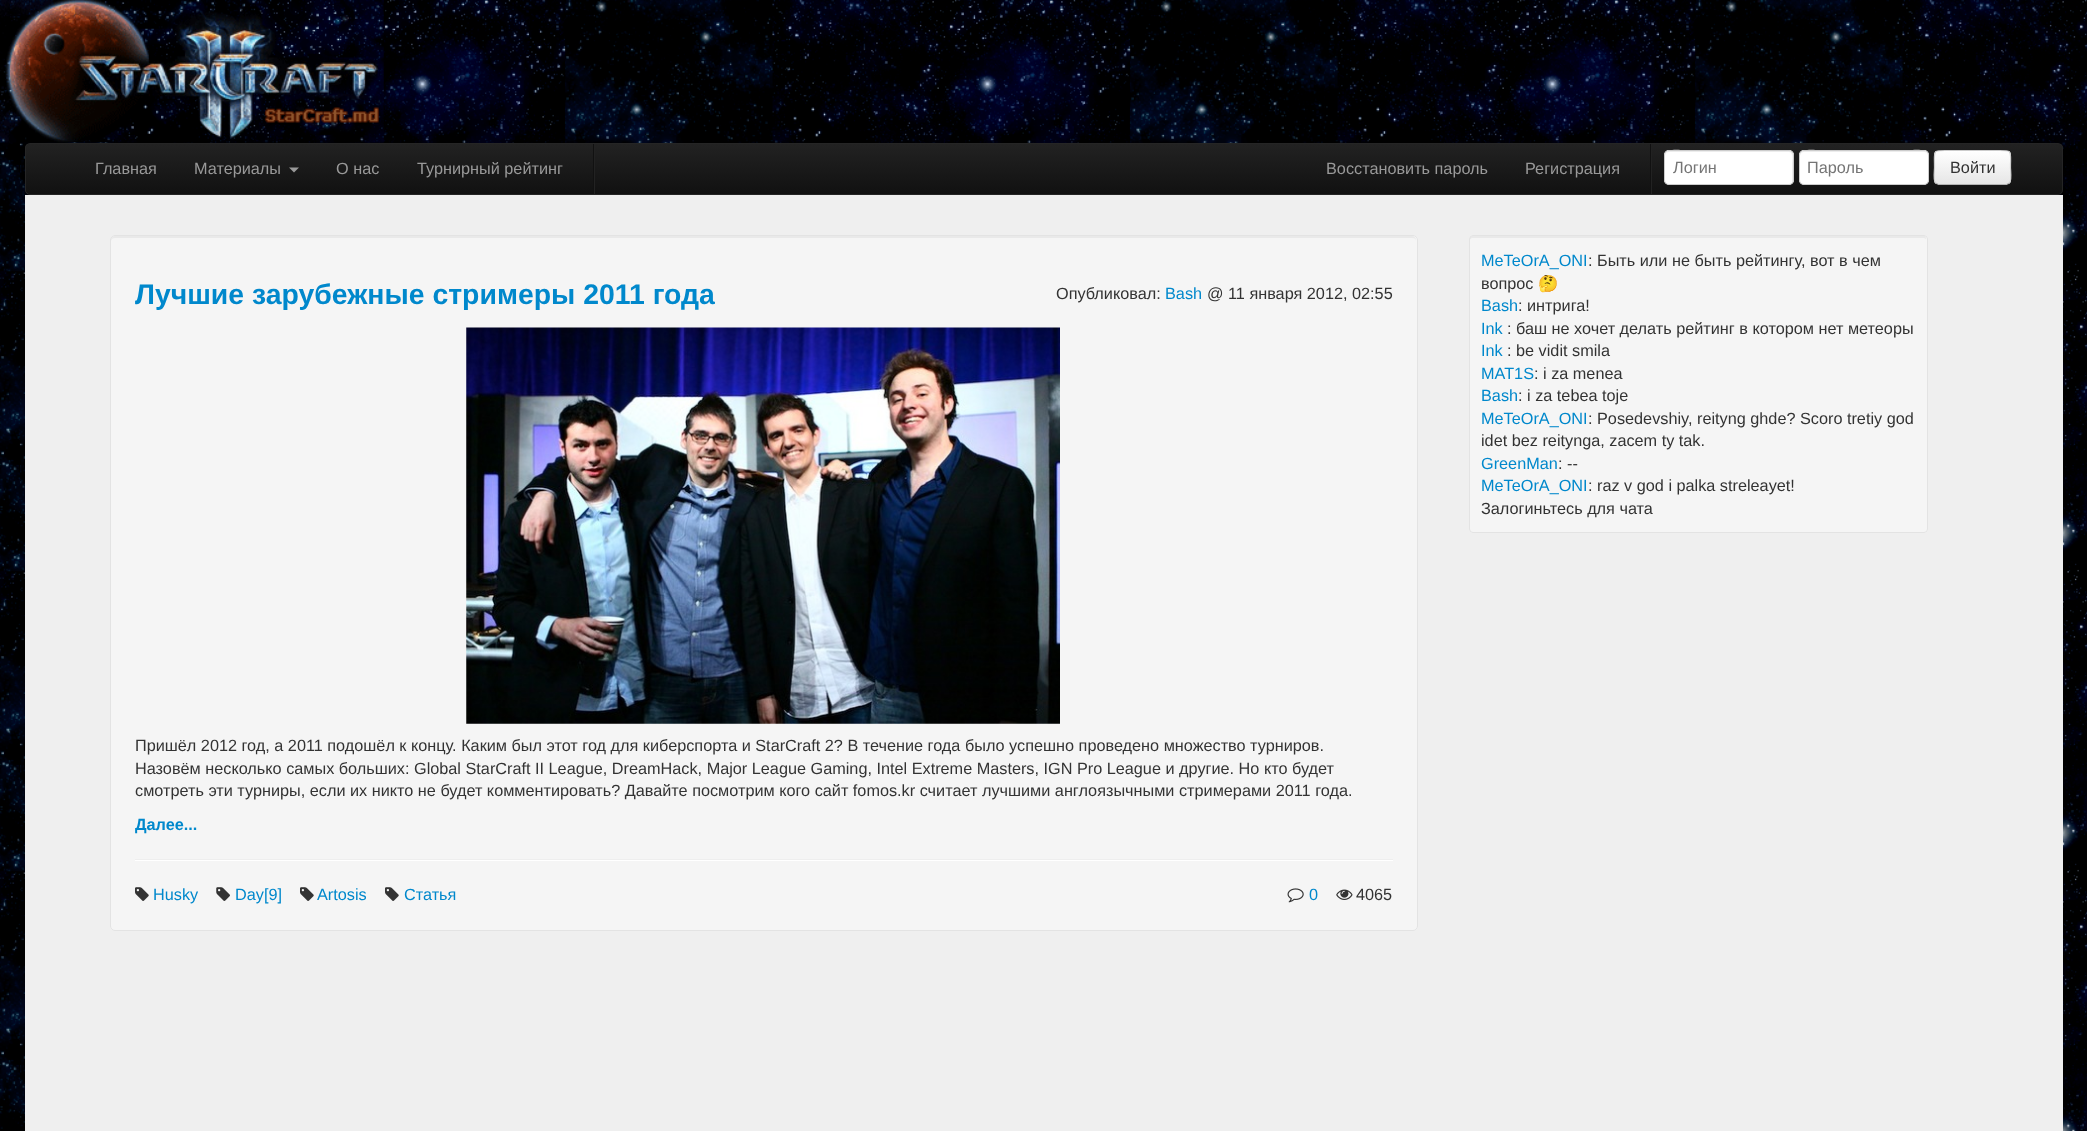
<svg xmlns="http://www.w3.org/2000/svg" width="2087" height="1131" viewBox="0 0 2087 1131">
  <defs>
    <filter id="blur1" x="-50%" y="-200%" width="200%" height="500%"><feGaussianBlur stdDeviation="2.5"/></filter>
    <clipPath id="clip1"><rect x="25" y="143" width="2038" height="52" rx="5"/></clipPath>
    <linearGradient id="g1" gradientUnits="userSpaceOnUse" x1="1044" y1="144" x2="1044" y2="194"><stop offset="0" stop-color="#222222"/><stop offset="1" stop-color="#111111"/></linearGradient>
    <clipPath id="clip2"><rect x="1934" y="150" width="77" height="35" rx="5"/></clipPath>
    <linearGradient id="g2" gradientUnits="userSpaceOnUse" x1="1973" y1="151" x2="1973" y2="184"><stop offset="0" stop-color="#ffffff"/><stop offset="1" stop-color="#e6e6e6"/></linearGradient>
  </defs>
  <rect width="100%" height="100%" fill="#ffffff"/>
  <image x="0" y="0" width="2087" height="1131" href="img1.png"/>
  <rect x="25" y="144" width="2038" height="52" rx="5" fill="#000000" fill-opacity="0.07" filter="url(#blur1)"/>
  <image x="0" y="0" width="384" height="143" href="img2.png"/>
  <g clip-path="url(#clip1)">
    <rect x="25" y="144" width="2038" height="50" fill="url(#g1)"/>
  </g>
  <rect x="25.5" y="143.5" width="2037" height="51" rx="4.5" fill="none" stroke="#252525"/>
  <text x="95" y="174" font-family="Liberation Sans" font-size="16.25" fill="#999999">Главная</text>
  <text x="194" y="174" font-family="Liberation Sans" font-size="16.25" fill="#999999">Материалы</text>
  <path d="M289 167.5H299L294 172.5Z" fill="#999999"/>
  <text x="336" y="174" font-family="Liberation Sans" font-size="16.25" fill="#999999">О нас</text>
  <text x="417" y="174" font-family="Liberation Sans" font-size="16.25" fill="#999999">Турнирный рейтинг</text>
  <rect x="594" y="144" width="1" height="50" fill="#222222"/>
  <rect x="593" y="144" width="1" height="50" fill="#111111"/>
  <text x="1326" y="174" font-family="Liberation Sans" font-size="16.25" fill="#999999">Восстановить пароль</text>
  <text x="1525" y="174" font-family="Liberation Sans" font-size="16.25" fill="#999999">Регистрация</text>
  <rect x="1651" y="144" width="1" height="50" fill="#222222"/>
  <rect x="1650" y="144" width="1" height="50" fill="#111111"/>
  <rect x="1664" y="150" width="130" height="35" rx="5" fill="#ffffff"/>
  <path d="M1669 152H1789C1794 152 1792 162 1792 164V183C1794 181 1793 171 1793 168C1793 146 1795 151 1769 151H1689C1687 151 1665 146 1665 156C1665 154 1667 152 1669 152Z" fill="#ececec"/>
  <rect x="1664.5" y="150.5" width="129" height="34" rx="4.5" fill="none" stroke="#cccccc"/>
  <text x="1673" y="173" font-family="Liberation Sans" font-size="16.25" fill="#757575">Логин</text>
  <rect x="1799" y="150" width="130" height="35" rx="5" fill="#ffffff"/>
  <path d="M1804 152H1924C1926 152 1928 154 1928 156C1928 146 1906 151 1904 151H1824C1822 151 1800 146 1800 156C1800 154 1802 152 1804 152Z" fill="#ececec"/>
  <rect x="1799.5" y="150.5" width="129" height="34" rx="4.5" fill="none" stroke="#cccccc"/>
  <text x="1807" y="173" font-family="Liberation Sans" font-size="16.25" fill="#757575">Пароль</text>
  <g clip-path="url(#clip2)">
    <rect x="1934" y="151" width="77" height="33" fill="url(#g2)"/>
  </g>
  <path d="M2009.5 183L2006.5 184.5H1938.5L1935.5 183" fill="none" stroke="#b3b3b3" stroke-width="1.2"/>
  <path d="M1935.5 183C1933 180.5 1934.5 170.5 1934.5 167.5C1934.5 149 1931.5 150.5 1950 150.5H1995C2013.5 150.5 2010.5 149 2010.5 167.5C2010.5 170.5 2012 180.5 2009.5 183" fill="none" stroke="#cccccc" stroke-width="1.2"/>
  <text x="1950" y="173" font-family="Liberation Sans" font-size="16.25" fill="#333333">Войти</text>
  <rect x="25" y="195" width="2038" height="936" fill="#efefef"/>
  <rect x="110" y="235" width="1308" height="696" rx="5" fill="#f5f5f5"/>
  <path d="M115 238H1412C1415 238 1416 239 1416 241V240C1416 238 1414 236 1412 236H115C113 236 111 238 111 240V241C111 239 113 238 115 238Z" fill="#e9e9e9"/>
  <rect x="110.5" y="235.5" width="1307" height="695" rx="4.5" fill="none" stroke="#e3e3e3"/>
  <text x="135" y="304" font-family="Liberation Sans" font-size="28.4" font-weight="bold" fill="#0088cc">Лучшие зарубежные стримеры 2011 года</text>
  <text x="1056" y="299" font-family="Liberation Sans" font-size="16.25" fill="#333333">Опубликовал:</text>
  <text x="1165" y="299" font-family="Liberation Sans" font-size="16.25" fill="#0088cc">Bash</text>
  <text x="1207" y="299" font-family="Liberation Sans" font-size="16.25" fill="#333333">@ 11 января 2012, 02:55</text>
  <image x="466" y="327" width="594" height="397" href="img3.png"/>
  <text x="135" y="751" font-family="Liberation Sans" font-size="16.25" fill="#333333">Пришёл 2012 год, а 2011 подошёл к концу. Каким был этот год для киберспорта и StarСraft 2? В течение года было успешно проведено множество турниров.</text>
  <text x="135" y="774" font-family="Liberation Sans" font-size="16.25" fill="#333333">Назовём несколько самых больших: Global StarCraft II League, DreamHack, Major League Gaming, Intel Extreme Masters, IGN Pro League и другие. Но кто будет</text>
  <text x="135" y="796" font-family="Liberation Sans" font-size="16.25" fill="#333333">смотреть эти турниры, если их никто не будет комментировать? Давайте посмотрим кого сайт fomos.kr считает лучшими англоязычными стримерами 2011 года.</text>
  <text x="135" y="830" font-family="Liberation Sans" font-size="16.25" font-weight="bold" fill="#0088cc">Далее...</text>
  <rect x="135" y="859" width="1258" height="1" fill="#eeeeee"/>
  <rect x="135" y="860" width="1258" height="1" fill="#ffffff"/>
  <image x="135" y="887" width="14" height="14" href="img4.png"/>
  <text x="153" y="900" font-family="Liberation Sans" font-size="16.25" fill="#0088cc">Husky</text>
  <image x="216" y="887" width="14" height="14" href="img5.png"/>
  <text x="235" y="900" font-family="Liberation Sans" font-size="16.25" fill="#0088cc">Day[9]</text>
  <image x="300" y="887" width="14" height="14" href="img4.png"/>
  <text x="317" y="900" font-family="Liberation Sans" font-size="16.25" fill="#0088cc">Artosis</text>
  <image x="385" y="887" width="14" height="14" href="img4.png"/>
  <text x="404" y="900" font-family="Liberation Sans" font-size="16.25" fill="#0088cc">Статья</text>
  <image x="1287" y="888" width="17" height="15" href="img6.png"/>
  <text x="1309" y="900" font-family="Liberation Sans" font-size="16.25" fill="#0088cc">0</text>
  <image x="1336" y="889" width="17" height="11" href="img7.png"/>
  <text x="1356" y="900" font-family="Liberation Sans" font-size="16.25" fill="#333333">4065</text>
  <rect x="1469" y="235" width="459" height="298" rx="4" fill="#f5f5f5"/>
  <path d="M1472 238H1924C1925 238 1926 239 1926 240C1926 238 1926 236 1924 236H1472L1470 237V240C1470 239 1471 238 1472 238Z" fill="#e9e9e9"/>
  <rect x="1469.5" y="235.5" width="458" height="297" rx="3.5" fill="none" stroke="#e3e3e3"/>
  <text x="1481" y="266" font-family="Liberation Sans" font-size="16.25" fill="#0088cc">MeTeOrA_ONI</text>
  <text x="1588" y="266" font-family="Liberation Sans" font-size="16.25" fill="#333333">: Быть или не быть рейтингу, вот в чем</text>
  <text x="1481" y="289" font-family="Liberation Sans" font-size="16.25" fill="#333333">вопрос</text>
  <text x="1538" y="289" font-family="Noto Color Emoji" font-size="16.25" fill="#333333">🤔</text>
  <text x="1481" y="311" font-family="Liberation Sans" font-size="16.25" fill="#0088cc">Bash</text>
  <text x="1518" y="311" font-family="Liberation Sans" font-size="16.25" fill="#333333">: интрига!</text>
  <text x="1481" y="334" font-family="Liberation Sans" font-size="16.25" fill="#0088cc">Ink</text>
  <text x="1507" y="334" font-family="Liberation Sans" font-size="16.25" fill="#333333">: баш не хочет делать рейтинг в котором нет метеоры</text>
  <text x="1481" y="356" font-family="Liberation Sans" font-size="16.25" fill="#0088cc">Ink</text>
  <text x="1507" y="356" font-family="Liberation Sans" font-size="16.25" fill="#333333">: be vidit smila</text>
  <text x="1481" y="379" font-family="Liberation Sans" font-size="16.25" fill="#0088cc">MAT1S</text>
  <text x="1534" y="379" font-family="Liberation Sans" font-size="16.25" fill="#333333">: i za menea</text>
  <text x="1481" y="401" font-family="Liberation Sans" font-size="16.25" fill="#0088cc">Bash</text>
  <text x="1518" y="401" font-family="Liberation Sans" font-size="16.25" fill="#333333">: i za tebea toje</text>
  <text x="1481" y="424" font-family="Liberation Sans" font-size="16.25" fill="#0088cc">MeTeOrA_ONI</text>
  <text x="1588" y="424" font-family="Liberation Sans" font-size="16.25" fill="#333333">: Posedevshiy, reityng ghde? Scoro tretiy god</text>
  <text x="1481" y="446" font-family="Liberation Sans" font-size="16.25" fill="#333333">idet bez reitynga, zacem ty tak.</text>
  <text x="1481" y="469" font-family="Liberation Sans" font-size="16.25" fill="#0088cc">GreenMan</text>
  <text x="1558" y="469" font-family="Liberation Sans" font-size="16.25" fill="#333333">: --</text>
  <text x="1481" y="491" font-family="Liberation Sans" font-size="16.25" fill="#0088cc">MeTeOrA_ONI</text>
  <text x="1588" y="491" font-family="Liberation Sans" font-size="16.25" fill="#333333">: raz v god i palka streleayet!</text>
  <text x="1481" y="514" font-family="Liberation Sans" font-size="16.25" fill="#333333">Залогиньтесь для чата</text>
</svg>
